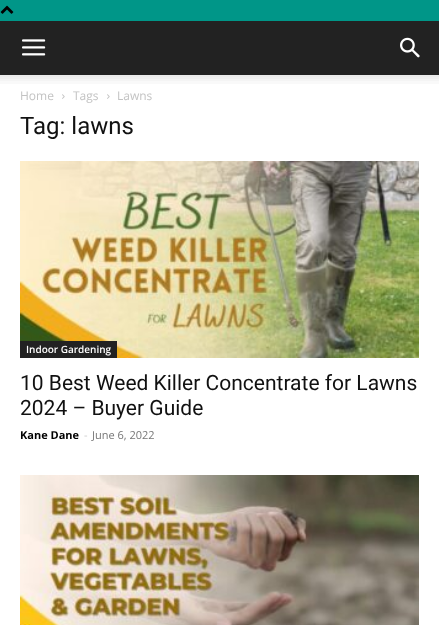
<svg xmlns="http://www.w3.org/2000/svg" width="439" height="625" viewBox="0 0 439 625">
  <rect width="100%" height="100%" fill="#ffffff"/>
  <rect x="0" y="0" width="439" height="21" fill="#009688"/>
  <image x="0" y="5" width="14" height="9" href="img1.png"/>
  <rect x="0" y="21" width="439" height="54" fill="#222222"/>
  <image x="22" y="39" width="24" height="17" href="img2.png"/>
  <image x="400" y="37" width="20" height="21" href="img3.png"/>
  <image x="0" y="75" width="439" height="9" href="img4.png"/>
  <text x="20" y="100" font-family="Open Sans" font-size="12" fill="#c3c3c3">Home</text>
  <image x="62" y="94" width="3" height="5" href="img5.png"/>
  <text x="73" y="100" font-family="Open Sans" font-size="12" fill="#c3c3c3">Tags</text>
  <image x="107" y="94" width="3" height="5" href="img5.png"/>
  <text x="117" y="100" font-family="Open Sans" font-size="12" fill="#c3c3c3">Lawns</text>
  <text x="20" y="134" font-family="Roboto" font-size="24" fill="#111111">Tag: lawns</text>
  <image x="20" y="161" width="399" height="197" href="img6.png"/>
  <rect x="20" y="341" width="97" height="17" fill="#222222"/>
  <text x="26" y="353" font-family="Open Sans" font-size="10" font-weight="600" fill="#ffffff">Indoor Gardening</text>
  <text x="20" y="390" font-family="Roboto" font-size="21" fill="#111111">10 Best Weed Killer Concentrate for Lawns</text>
  <text x="20" y="415" font-family="Roboto" font-size="21" fill="#111111">2024 – Buyer Guide</text>
  <text x="20" y="439" font-family="Open Sans" font-size="11" font-weight="bold" fill="#000000">Kane Dane</text>
  <text x="84" y="439" font-family="Open Sans" font-size="11" fill="#cccccc">-</text>
  <text x="92" y="439" font-family="Open Sans" font-size="11" fill="#767676">June 6, 2022</text>
  <image x="20" y="475" width="399" height="150" href="img7.png"/>
</svg>
